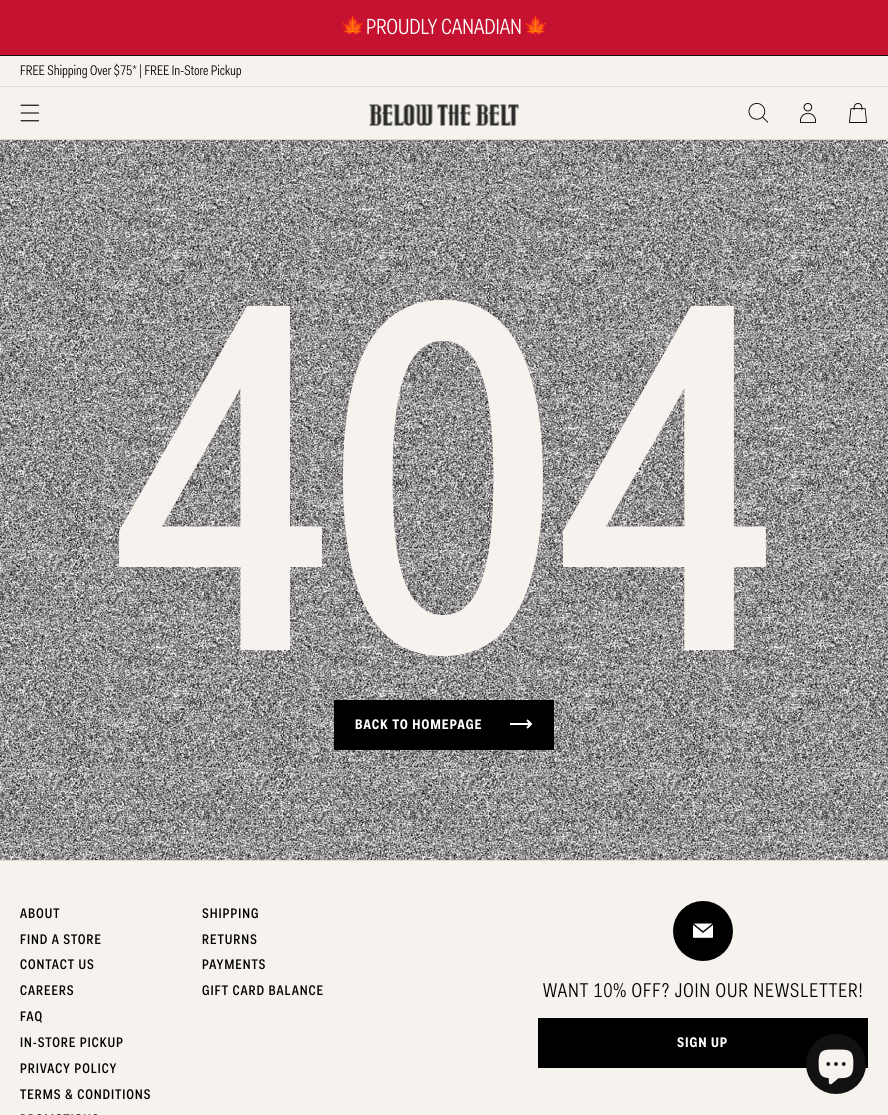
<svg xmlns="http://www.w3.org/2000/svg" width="888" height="1115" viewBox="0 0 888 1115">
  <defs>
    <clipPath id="clip1"><rect x="35" y="15" width="818" height="25"/></clipPath>
  </defs>
  <rect width="100%" height="100%" fill="#f6f3ee"/>
  <rect x="0" y="0" width="888" height="55" fill="#c41230"/>
  <g clip-path="url(#clip1)">
    <text x="339" y="34" font-family="Noto Color Emoji" font-size="22" fill="#ffffff">🍁</text>
  </g>
  <image x="367" y="18" width="154" height="17" href="img1.png"/>
  <g clip-path="url(#clip1)">
    <text x="522" y="34" font-family="Noto Color Emoji" font-size="22" fill="#ffffff">🍁</text>
  </g>
  <rect x="0" y="55" width="888" height="1" fill="#111111"/>
  <rect x="0" y="86" width="888" height="1" fill="#dcdad5"/>
  <image x="20" y="63" width="222" height="16" href="img2.png"/>
  <rect x="0" y="139" width="888" height="1" fill="#dcdad5"/>
  <image x="20" y="104" width="20" height="18" href="img3.png"/>
  <image x="369" y="104" width="150" height="22" href="img4.png"/>
  <image x="748" y="103" width="20" height="20" href="img5.png"/>
  <image x="800" y="103" width="16" height="20" href="img6.png"/>
  <image x="849" y="103" width="18" height="20" href="img7.png"/>
  <image x="0" y="140" width="888" height="720" href="img8.png"/>
  <image x="119" y="299" width="647" height="358" href="img9.png"/>
  <rect x="334" y="700" width="220" height="50" fill="#000000"/>
  <image x="355" y="719" width="127" height="11" href="img10.png"/>
  <path d="M527 720L531 724L527 728" fill="none" stroke="#ffffff" stroke-width="2"/>
  <rect x="510" y="723" width="20" height="2" fill="#ffffff"/>
  <rect x="0" y="860" width="888" height="1" fill="#dcdad5"/>
  <image x="20" y="908" width="40" height="11" href="img11.png"/>
  <image x="20" y="934" width="81" height="11" href="img12.png"/>
  <image x="20" y="959" width="74" height="11" href="img13.png"/>
  <image x="20" y="985" width="54" height="11" href="img14.png"/>
  <image x="20" y="1011" width="22" height="12" href="img15.png"/>
  <image x="202" y="908" width="56" height="11" href="img16.png"/>
  <image x="202" y="934" width="55" height="11" href="img17.png"/>
  <image x="202" y="959" width="63" height="11" href="img18.png"/>
  <image x="202" y="985" width="121" height="11" href="img19.png"/>
  <image x="20" y="1037" width="103" height="11" href="img20.png"/>
  <image x="20" y="1063" width="97" height="11" href="img21.png"/>
  <image x="20" y="1089" width="130" height="11" href="img22.png"/>
  <image x="20" y="1114" width="78" height="1" href="img23.png"/>
  <circle cx="703" cy="931" r="30" fill="#000000"/>
  <image x="693" y="923" width="20" height="15" href="img24.png"/>
  <image x="543" y="983" width="319" height="15" href="img25.png"/>
  <rect x="538" y="1018" width="330" height="50" fill="#000000"/>
  <image x="677" y="1037" width="50" height="11" href="img26.png"/>
  <circle cx="836" cy="1064" r="30" fill="#111111"/>
  <image x="818" y="1049" width="36" height="36" href="img27.png"/>
</svg>
